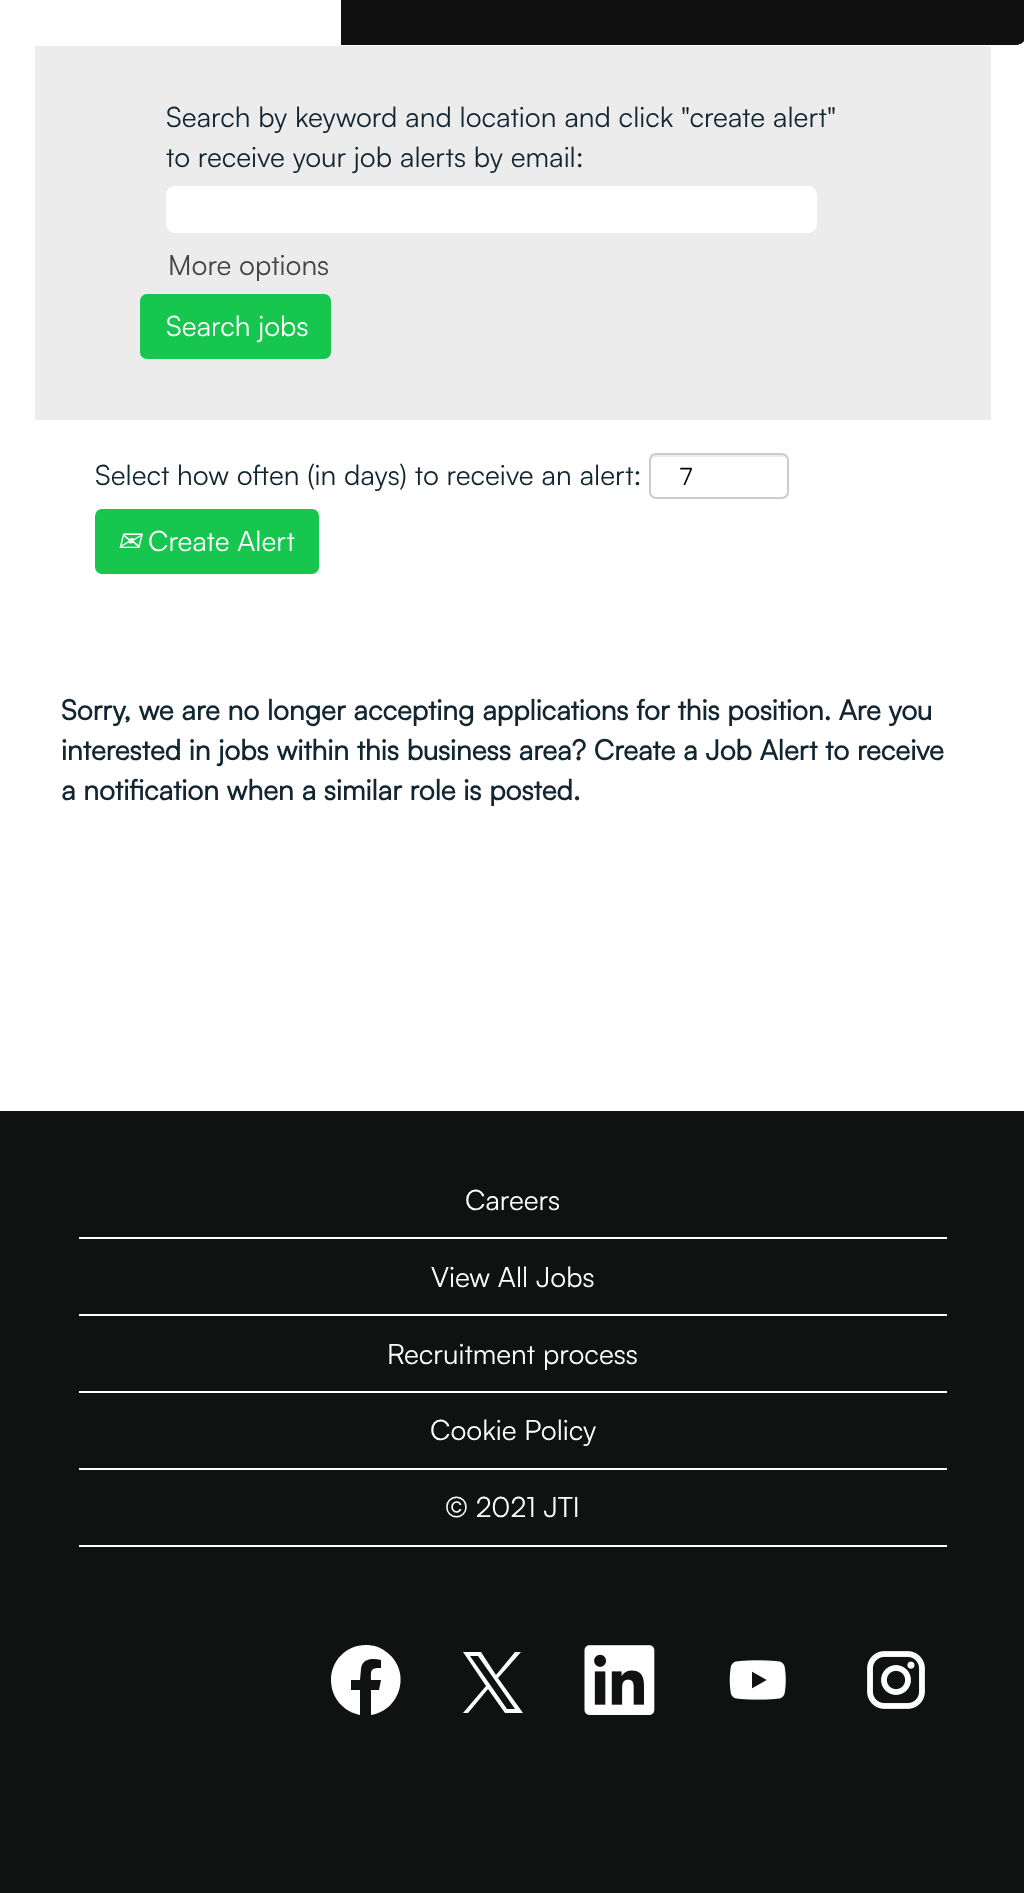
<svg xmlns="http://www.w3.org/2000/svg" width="1024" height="1893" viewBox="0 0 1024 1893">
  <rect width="100%" height="100%" fill="#ffffff"/>
  <image x="341" y="0" width="683" height="45" href="img1.png"/>
  <rect x="35" y="46" width="956" height="374" fill="#ececed"/>
  <text x="166" y="127" font-family="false" font-size="28" fill="#122632">Search by keyword and location and click "create alert"</text>
  <text x="166" y="167" font-family="false" font-size="28" fill="#122632">to receive your job alerts by email:</text>
  <rect x="166" y="186" width="651" height="47" rx="9" fill="#ffffff"/>
  <text x="168" y="275" font-family="false" font-size="28" fill="#444444">More options</text>
  <rect x="140" y="294" width="191" height="65" rx="7" fill="#17c64f"/>
  <text x="166" y="336" font-family="false" font-size="28" fill="#ffffff">Search jobs</text>
  <text x="95" y="485" font-family="false" font-size="28" fill="#122632">Select how often (in days) to receive an alert:</text>
  <path d="M656 457H782C785 457 788 459 788 462V460C788 457 786 455 783 455H656C653 455 651 457 651 460V462C651 459 653 457 656 457Z" fill="#ececec"/>
  <rect x="650" y="454" width="138" height="44" rx="6" fill="none" stroke="#cccccc" stroke-width="2"/>
  <text x="680" y="485" font-family="false" font-size="24" fill="#000000">7</text>
  <rect x="95" y="509" width="224" height="65" rx="7" fill="#17c64f"/>
  <text x="117" y="551" font-family="DejaVu Sans" font-size="28" font-style="italic" fill="#ffffff">✉</text>
  <text x="148" y="551" font-family="false" font-size="28" fill="#ffffff">Create Alert</text>
  <text x="61" y="720" font-family="false" font-size="28" font-weight="bold" fill="#122632">Sorry, we are no longer accepting applications for this position. Are you</text>
  <text x="61" y="760" font-family="false" font-size="28" font-weight="bold" fill="#122632">interested in jobs within this business area? Create a Job Alert to receive</text>
  <text x="61" y="800" font-family="false" font-size="28" font-weight="bold" fill="#122632">a notification when a similar role is posted.</text>
  <rect x="0" y="1111" width="1024" height="782" fill="#101111"/>
  <rect x="79" y="1237" width="868" height="2" fill="#ffffff"/>
  <text x="465" y="1210" font-family="false" font-size="28" fill="#ffffff">Careers</text>
  <rect x="79" y="1314" width="868" height="2" fill="#ffffff"/>
  <text x="431" y="1287" font-family="false" font-size="28" fill="#ffffff">View All Jobs</text>
  <rect x="79" y="1391" width="868" height="2" fill="#ffffff"/>
  <text x="387" y="1364" font-family="false" font-size="28" fill="#ffffff">Recruitment process</text>
  <rect x="79" y="1468" width="868" height="2" fill="#ffffff"/>
  <text x="430" y="1440" font-family="false" font-size="28" fill="#ffffff">Cookie Policy</text>
  <rect x="79" y="1545" width="868" height="2" fill="#ffffff"/>
  <text x="445" y="1517" font-family="false" font-size="28" fill="#ffffff">© 2021 JTI</text>
  <path d="M366 1645C346 1645 331 1661 331 1680C331 1698 344 1712 360 1715V1690H351V1680H360L361 1669C362 1658 373 1658 381 1660V1668C370 1668 371 1670 371 1680H381L379 1690H371V1715C402 1710 412 1669 385 1651C380 1647 373 1645 366 1645Z" fill="#ffffff"/>
  <path d="M498 1678L521 1652H515L496 1675L481 1652H463L486 1686L463 1713H468L488 1689L505 1713H523ZM491 1686L470 1656H478L515 1709H507Z" fill="#ffffff"/>
  <image x="584" y="1645" width="71" height="70" href="img2.png"/>
  <image x="729" y="1660" width="57" height="40" href="img3.png"/>
  <image x="867" y="1651" width="58" height="58" href="img4.png"/>
</svg>
